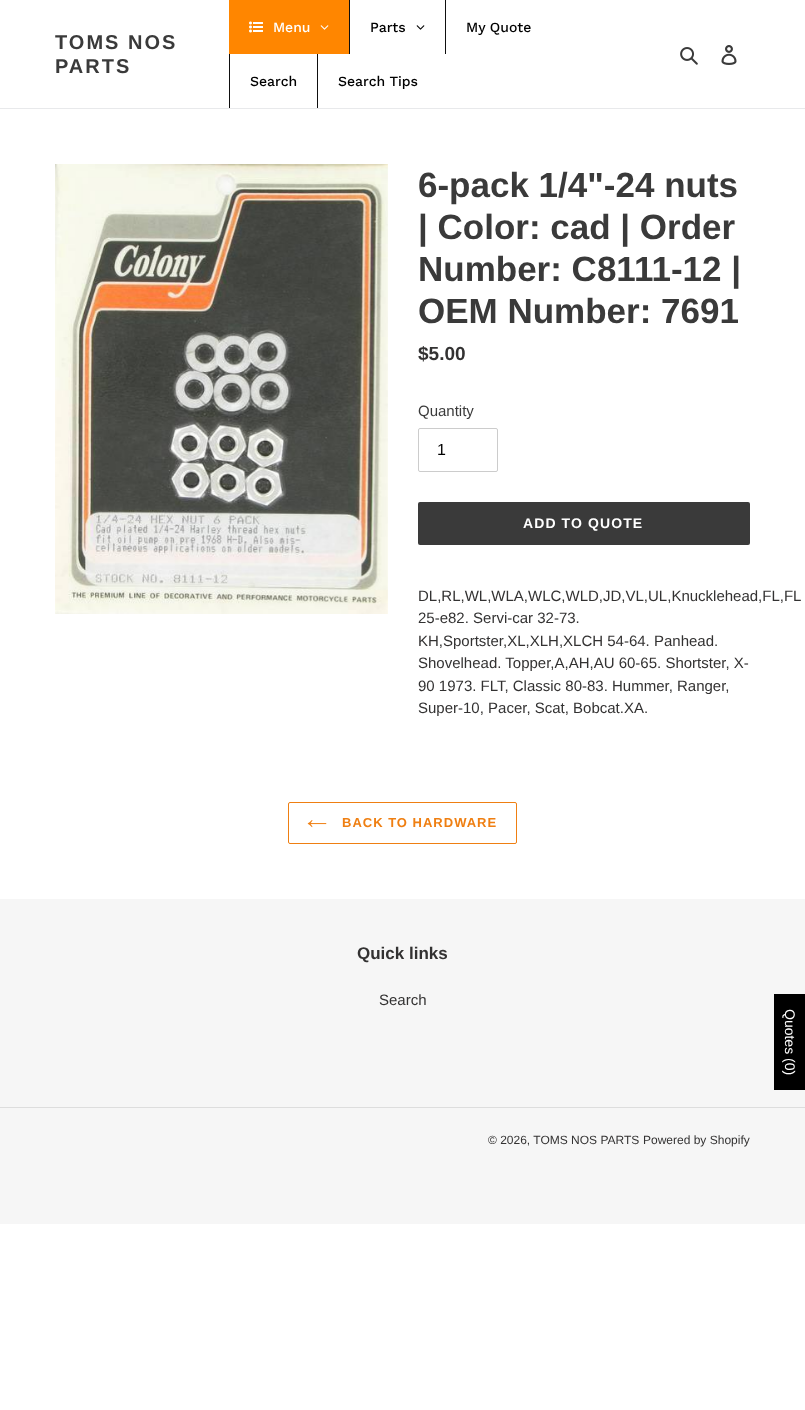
<svg xmlns="http://www.w3.org/2000/svg" width="805" height="1410" viewBox="0 0 805 1410">
  <rect width="100%" height="100%" fill="#ffffff"/>
  <rect x="0" y="108" width="805" height="1" fill="#e8e9eb"/>
  <text x="55" y="49" font-family="Liberation Sans" font-size="20" font-weight="bold" letter-spacing="2" fill="#3a3a3a">TOMS NOS</text>
  <text x="55" y="73" font-family="Liberation Sans" font-size="20" font-weight="bold" letter-spacing="2" fill="#3a3a3a">PARTS</text>
  <rect x="229" y="0" width="120" height="54" fill="#ff8600"/>
  <image x="249" y="21" width="14" height="12" href="img1.png"/>
  <text x="273" y="32" font-family="Work Sans" font-size="14" font-weight="500" fill="#ffffff">Menu</text>
  <image x="320" y="25" width="9" height="5" href="img2.png"/>
  <rect x="349" y="0" width="1" height="54" fill="#0f0f0f"/>
  <text x="370" y="32" font-family="Work Sans" font-size="14" font-weight="500" fill="#000000">Parts</text>
  <image x="416" y="25" width="9" height="5" href="img3.png"/>
  <rect x="445" y="0" width="1" height="54" fill="#0f0f0f"/>
  <text x="466" y="32" font-family="Work Sans" font-size="14" font-weight="500" fill="#000000">My Quote</text>
  <rect x="229" y="54" width="1" height="54" fill="#0f0f0f"/>
  <text x="250" y="86" font-family="Work Sans" font-size="14" font-weight="500" fill="#000000">Search</text>
  <rect x="317" y="54" width="1" height="54" fill="#0f0f0f"/>
  <text x="338" y="86" font-family="Work Sans" font-size="14" font-weight="500" fill="#000000">Search Tips</text>
  <image x="680" y="47" width="18" height="18" href="img4.png"/>
  <image x="721" y="45" width="16" height="20" href="img5.png"/>
  <image x="55" y="164" width="333" height="450" href="img6.png"/>
  <text x="418" y="197" font-family="Liberation Sans" font-size="35" font-weight="bold" fill="#3a3a3a">6-pack 1/4"-24 nuts</text>
  <text x="418" y="239" font-family="Liberation Sans" font-size="35" font-weight="bold" fill="#3a3a3a">| Color: cad | Order</text>
  <text x="418" y="281" font-family="Liberation Sans" font-size="35" font-weight="bold" fill="#3a3a3a">Number: C8111-12 |</text>
  <text x="418" y="323" font-family="Liberation Sans" font-size="35" font-weight="bold" fill="#3a3a3a">OEM Number: 7691</text>
  <text x="418" y="360" font-family="Liberation Sans" font-size="19" font-weight="bold" fill="#333232">$5.00</text>
  <text x="418" y="416" font-family="Liberation Sans" font-size="15" fill="#3a3a3a">Quantity</text>
  <rect x="418.5" y="428.5" width="79" height="43" rx="1.5" fill="none" stroke="#cccccc"/>
  <text x="437" y="455" font-family="Liberation Sans" font-size="16" fill="#000000">1</text>
  <rect x="418" y="502" width="332" height="43" rx="2" fill="#3a3a3a"/>
  <text x="523" y="528" font-family="Liberation Sans" font-size="14" font-weight="bold" letter-spacing="1.1" fill="#ffffff">ADD TO QUOTE</text>
  <text x="418" y="601" font-family="Liberation Sans" font-size="15" fill="#333232">DL,RL,WL,WLA,WLC,WLD,JD,VL,UL,Knucklehead,FL,FL</text>
  <text x="418" y="623" font-family="Liberation Sans" font-size="15" fill="#333232">25-e82. Servi-car 32-73.</text>
  <text x="418" y="646" font-family="Liberation Sans" font-size="15" fill="#333232">KH,Sportster,XL,XLH,XLCH 54-64. Panhead.</text>
  <text x="418" y="668" font-family="Liberation Sans" font-size="15" fill="#333232">Shovelhead. Topper,A,AH,AU 60-65. Shortster, X-</text>
  <text x="418" y="691" font-family="Liberation Sans" font-size="15" fill="#333232">90 1973. FLT, Classic 80-83. Hummer, Ranger,</text>
  <text x="418" y="713" font-family="Liberation Sans" font-size="15" fill="#333232">Super-10, Pacer, Scat, Bobcat.XA.</text>
  <rect x="288.5" y="802.5" width="228" height="41" rx="1.5" fill="none" stroke="#ef7f12"/>
  <image x="307" y="820" width="20" height="8" href="img7.png"/>
  <text x="342" y="827" font-family="Liberation Sans" font-size="13" font-weight="bold" letter-spacing="1" fill="#ef7f12">BACK TO HARDWARE</text>
  <rect x="0" y="899" width="805" height="325" fill="#f6f6f6"/>
  <text x="357" y="959" font-family="Liberation Sans" font-size="17" font-weight="bold" fill="#333232">Quick links</text>
  <text x="379" y="1005" font-family="Liberation Sans" font-size="15" fill="#333232">Search</text>
  <rect x="0" y="1107" width="805" height="1" fill="#dddddd"/>
  <text x="488" y="1144" font-family="Liberation Sans" font-size="12" fill="#333232">© 2026, TOMS NOS PARTS</text>
  <text x="643" y="1144" font-family="Liberation Sans" font-size="12" fill="#333232">Powered by Shopify</text>
  <rect x="774" y="994" width="31" height="96" fill="#000000"/>
  <text x="785" y="1009" transform="rotate(90 785 1009)" font-family="Liberation Sans" font-size="14" fill="#ffffff">Quotes (0)</text>
</svg>
